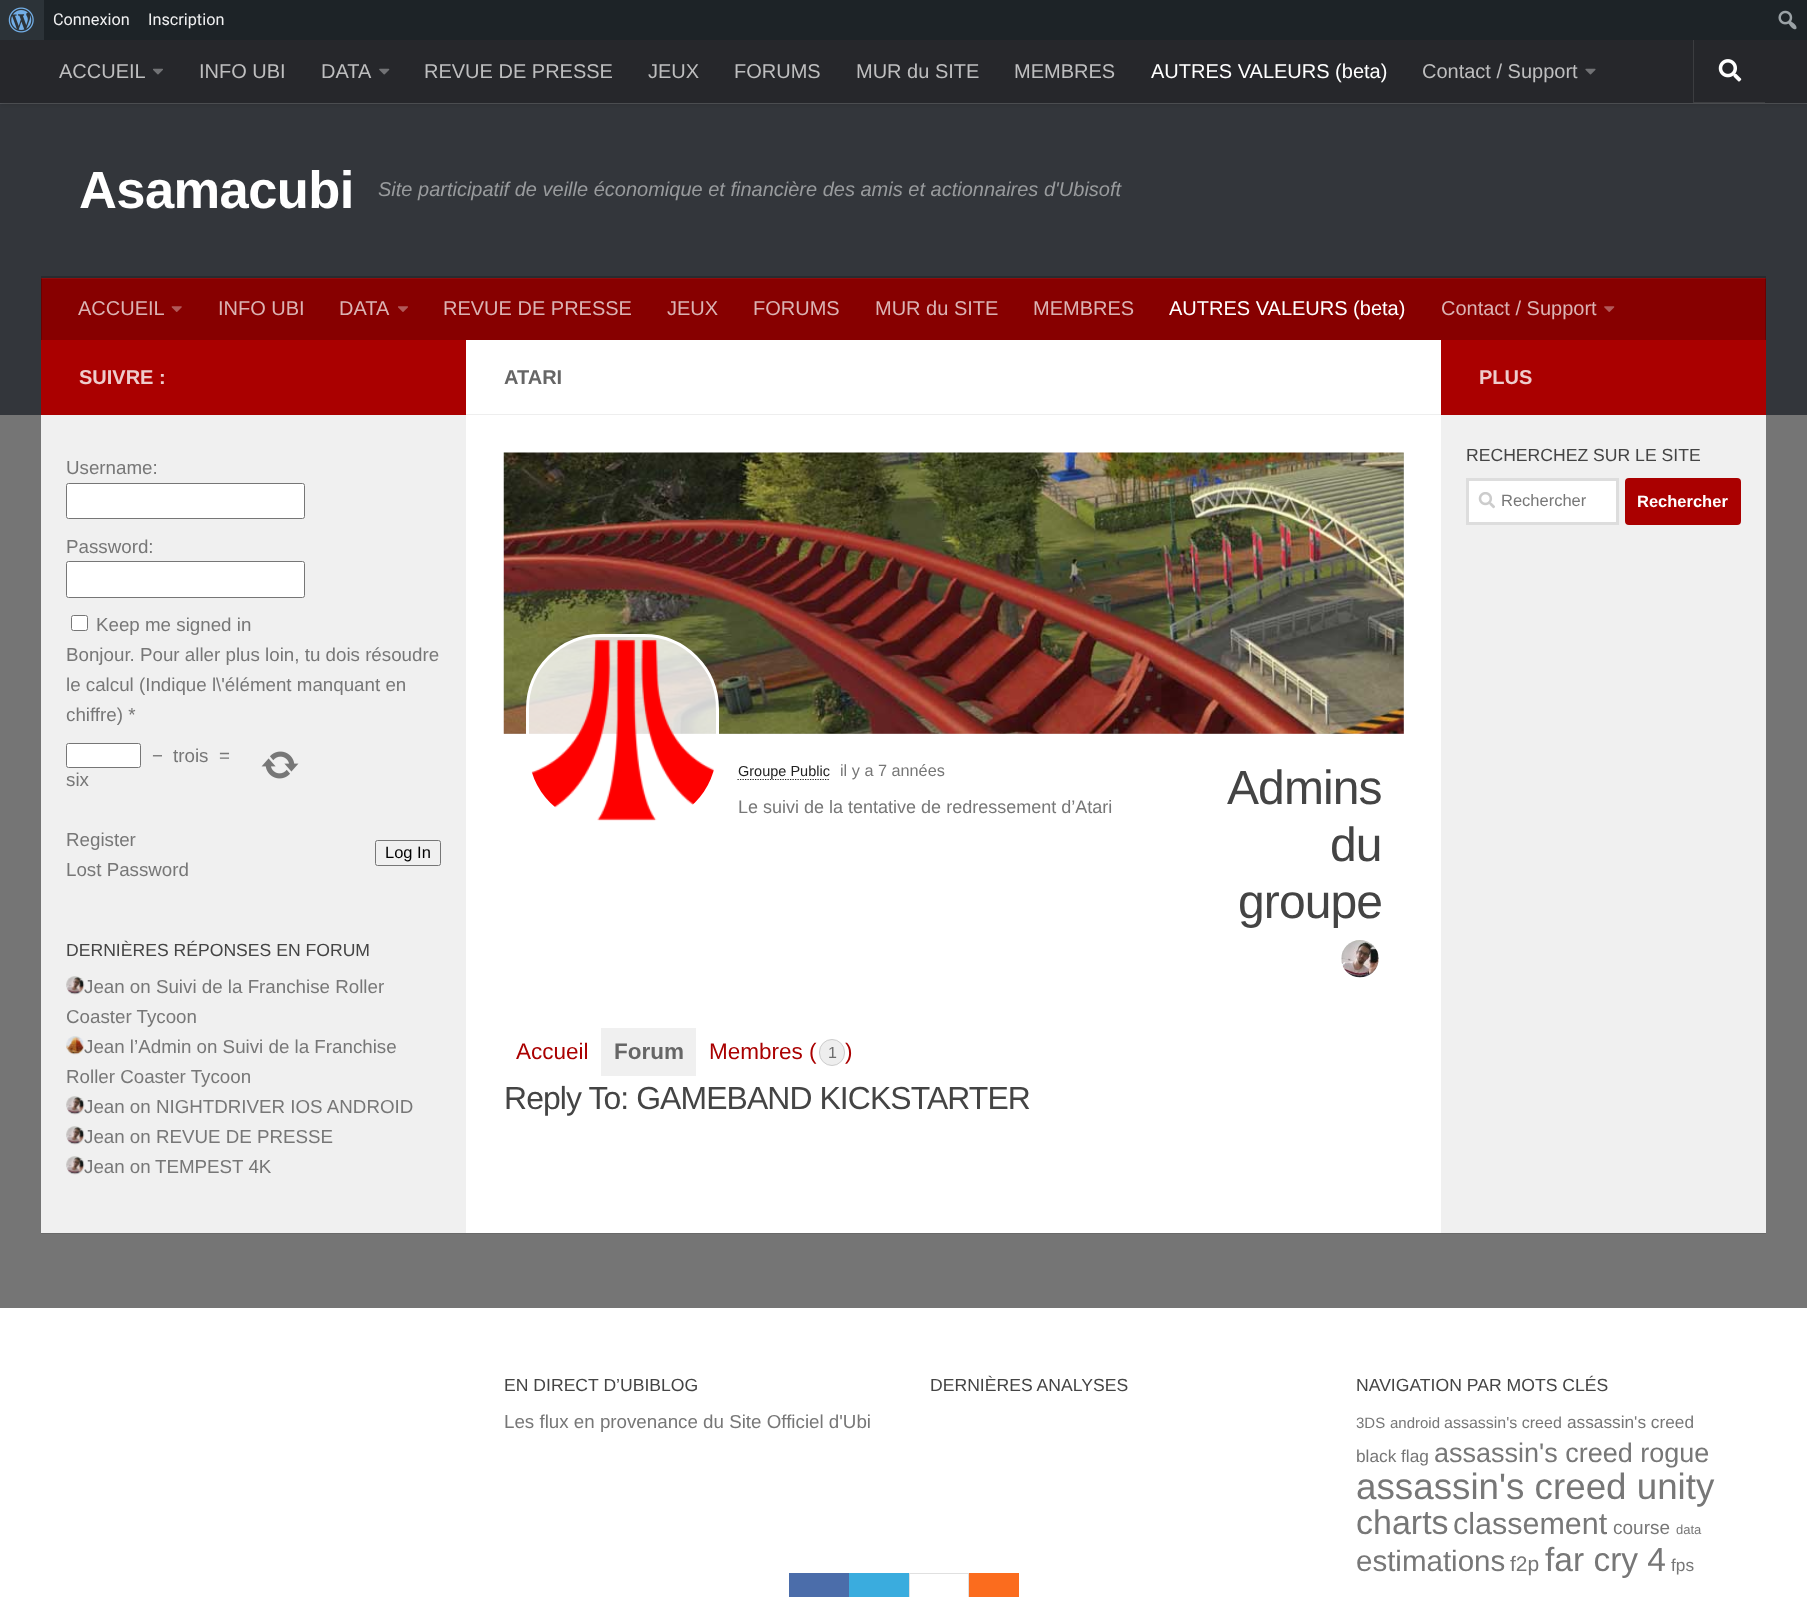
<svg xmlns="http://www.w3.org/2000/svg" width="1807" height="1597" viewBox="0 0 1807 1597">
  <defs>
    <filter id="blur1" x="-50%" y="-200%" width="200%" height="500%"><feGaussianBlur stdDeviation="0.5"/></filter>
    <filter id="blur2" x="-50%" y="-200%" width="200%" height="500%"><feGaussianBlur stdDeviation="3"/></filter>
  </defs>
  <rect width="100%" height="100%" fill="#757575"/>
  <rect x="41" y="341" width="1725" height="893" fill="#000000" fill-opacity="0.1" filter="url(#blur1)"/>
  <rect x="0" y="104" width="1807" height="311" fill="#33363b"/>
  <path d="M0 102V104H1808V41V102Z" fill="#525458"/>
  <rect x="0" y="40" width="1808" height="63" fill="#000000" fill-opacity="0.2" filter="url(#blur2)"/>
  <rect x="44" y="0" width="1763" height="40" fill="#1d2327"/>
  <rect x="0" y="0" width="44" height="40" fill="#2c3338"/>
  <image x="8" y="7" width="26" height="26" href="img1.png"/>
  <text x="53" y="25" font-family="Roboto" font-size="16.25" fill="#f0f0f1">Connexion</text>
  <text x="148" y="25" font-family="Roboto" font-size="16.25" fill="#f0f0f1">Inscription</text>
  <image x="1778" y="10" width="19" height="20" href="img2.png"/>
  <rect x="0" y="40" width="1807" height="63" fill="#26272b"/>
  <text x="59" y="78" font-family="Liberation Sans" font-size="20" fill="#bebebf">ACCUEIL</text>
  <image x="153" y="68" width="10" height="7" href="img3.png"/>
  <text x="199" y="78" font-family="Liberation Sans" font-size="20" fill="#bebebf">INFO UBI</text>
  <text x="321" y="78" font-family="Liberation Sans" font-size="20" fill="#bebebf">DATA</text>
  <image x="379" y="68" width="11" height="7" href="img4.png"/>
  <text x="424" y="78" font-family="Liberation Sans" font-size="20" fill="#bebebf">REVUE DE PRESSE</text>
  <text x="648" y="78" font-family="Liberation Sans" font-size="20" fill="#bebebf">JEUX</text>
  <text x="734" y="78" font-family="Liberation Sans" font-size="20" fill="#bebebf">FORUMS</text>
  <text x="856" y="78" font-family="Liberation Sans" font-size="20" fill="#bebebf">MUR du SITE</text>
  <text x="1014" y="78" font-family="Liberation Sans" font-size="20" fill="#bebebf">MEMBRES</text>
  <text x="1151" y="78" font-family="Liberation Sans" font-size="20" fill="#ffffff">AUTRES VALEURS (beta)</text>
  <text x="1422" y="78" font-family="Liberation Sans" font-size="20" fill="#bebebf">Contact / Support</text>
  <image x="1585" y="68" width="11" height="7" href="img5.png"/>
  <path d="M1693 40V103H1765V102H1694V40Z" fill="#3c3d40"/>
  <image x="1718" y="59" width="24" height="23" href="img6.png"/>
  <text x="79" y="208" font-family="Liberation Sans" font-size="52.5" font-weight="bold" letter-spacing="-0.6" fill="#ffffff">Asamacubi</text>
  <text x="378" y="196" font-family="Liberation Sans" font-size="20" font-style="italic" fill="#999b9d">Site participatif de veille économique et financière des amis et actionnaires d'Ubisoft</text>
  <path d="M41 276V339V278H1766V276Z" fill="#292b2f"/>
  <rect x="42" y="279" width="1723" height="61" fill="#870000"/>
  <rect x="41" y="278" width="1725" height="1" fill="#8d0d0d"/>
  <rect x="1765" y="278" width="1" height="62" fill="#6c0000"/>
  <rect x="1765" y="278" width="1" height="1" fill="#730d0d"/>
  <rect x="41" y="278" width="1" height="62" fill="#6c0000"/>
  <rect x="41" y="278" width="1" height="1" fill="#730d0d"/>
  <text x="78" y="315" font-family="Liberation Sans" font-size="20" fill="#dbb3b3">ACCUEIL</text>
  <image x="171" y="306" width="11" height="6" href="img7.png"/>
  <text x="218" y="315" font-family="Liberation Sans" font-size="20" fill="#dbb3b3">INFO UBI</text>
  <text x="339" y="315" font-family="Liberation Sans" font-size="20" fill="#dbb3b3">DATA</text>
  <image x="398" y="306" width="10" height="6" href="img8.png"/>
  <text x="443" y="315" font-family="Liberation Sans" font-size="20" fill="#dbb3b3">REVUE DE PRESSE</text>
  <text x="667" y="315" font-family="Liberation Sans" font-size="20" fill="#dbb3b3">JEUX</text>
  <text x="753" y="315" font-family="Liberation Sans" font-size="20" fill="#dbb3b3">FORUMS</text>
  <text x="875" y="315" font-family="Liberation Sans" font-size="20" fill="#dbb3b3">MUR du SITE</text>
  <text x="1033" y="315" font-family="Liberation Sans" font-size="20" fill="#dbb3b3">MEMBRES</text>
  <text x="1169" y="315" font-family="Liberation Sans" font-size="20" fill="#ffffff">AUTRES VALEURS (beta)</text>
  <text x="1441" y="315" font-family="Liberation Sans" font-size="20" fill="#dbb3b3">Contact / Support</text>
  <image x="1604" y="306" width="11" height="6" href="img9.png"/>
  <rect x="466" y="340" width="975" height="893" fill="#ffffff"/>
  <rect x="41" y="340" width="425" height="75" fill="#aa0000"/>
  <text x="79" y="384" font-family="Liberation Sans" font-size="20" font-weight="bold" fill="#eecccc">SUIVRE :</text>
  <rect x="41" y="415" width="425" height="818" fill="#f0f0f0"/>
  <text x="66" y="474" font-family="Liberation Sans" font-size="18.75" fill="#777777">Username:</text>
  <rect x="66.5" y="483.5" width="238" height="35" rx="2" fill="#ffffff" stroke="#767676"/>
  <text x="66" y="553" font-family="Liberation Sans" font-size="18.75" fill="#777777">Password:</text>
  <rect x="66.5" y="561.5" width="238" height="36" rx="2" fill="#ffffff" stroke="#767676"/>
  <rect x="71.5" y="615.5" width="16" height="15" rx="2" fill="#ffffff" stroke="#767676"/>
  <text x="96" y="631" font-family="Liberation Sans" font-size="18.75" fill="#777777">Keep me signed in</text>
  <text x="66" y="661" font-family="Liberation Sans" font-size="18.75" fill="#777777">Bonjour. Pour aller plus loin, tu dois résoudre</text>
  <text x="66" y="691" font-family="Liberation Sans" font-size="18.75" fill="#777777">le calcul (Indique l\'élément manquant en</text>
  <text x="66" y="721" font-family="Liberation Sans" font-size="18.75" fill="#777777">chiffre) *</text>
  <rect x="66.5" y="743.5" width="74" height="24" rx="2" fill="#ffffff" stroke="#767676"/>
  <text x="152" y="762" font-family="Liberation Sans" font-size="18.75" fill="#777777">−</text>
  <text x="173" y="762" font-family="Liberation Sans" font-size="18.75" fill="#777777">trois</text>
  <text x="219" y="762" font-family="Liberation Sans" font-size="18.75" fill="#777777">=</text>
  <text x="66" y="786" font-family="Liberation Sans" font-size="18.75" fill="#777777">six</text>
  <image x="261" y="751" width="38" height="28" href="img10.png"/>
  <text x="66" y="846" font-family="Liberation Sans" font-size="18.75" fill="#777777">Register</text>
  <text x="66" y="876" font-family="Liberation Sans" font-size="18.75" fill="#777777">Lost Password</text>
  <rect x="375.5" y="840.5" width="65" height="25" rx="2" fill="none" stroke="#767676"/>
  <text x="385" y="858" font-family="Liberation Sans" font-size="16.5" fill="#000000">Log In</text>
  <text x="66" y="956" font-family="Liberation Sans" font-size="17.6" fill="#444444">DERNIÈRES RÉPONSES EN FORUM</text>
  <image x="66" y="976" width="19" height="19" href="img11.png"/>
  <text x="84" y="993" font-family="Liberation Sans" font-size="18.75" fill="#777777">Jean on Suivi de la Franchise Roller</text>
  <text x="66" y="1023" font-family="Liberation Sans" font-size="18.75" fill="#777777">Coaster Tycoon</text>
  <image x="66" y="1036" width="18" height="19" href="img12.png"/>
  <text x="84" y="1053" font-family="Liberation Sans" font-size="18.75" fill="#777777">Jean l’Admin on Suivi de la Franchise</text>
  <text x="66" y="1083" font-family="Liberation Sans" font-size="18.75" fill="#777777">Roller Coaster Tycoon</text>
  <image x="66" y="1096" width="19" height="19" href="img13.png"/>
  <text x="84" y="1113" font-family="Liberation Sans" font-size="18.75" fill="#777777">Jean on NIGHTDRIVER IOS ANDROID</text>
  <image x="66" y="1126" width="19" height="19" href="img13.png"/>
  <text x="84" y="1143" font-family="Liberation Sans" font-size="18.75" fill="#777777">Jean on REVUE DE PRESSE</text>
  <image x="66" y="1156" width="19" height="19" href="img13.png"/>
  <text x="84" y="1173" font-family="Liberation Sans" font-size="18.75" fill="#777777">Jean on</text>
  <text x="155" y="1173" font-family="Liberation Sans" font-size="18.75" fill="#777777">TEMPEST 4K</text>
  <rect x="466" y="414" width="975" height="1" fill="#eeeeee"/>
  <text x="504" y="384" font-family="Liberation Sans" font-size="20" font-weight="bold" fill="#666666">ATARI</text>
  <rect x="504" y="453" width="900" height="281" fill="#c5c5c5"/>
  <image x="503" y="452" width="901" height="282" href="img14.png"/>
  <rect x="527.5" y="635.5" width="190" height="189" rx="73.5" fill="#ffffff" fill-opacity="0.8" stroke="#ffffff" stroke-width="3"/>
  <image x="531" y="639" width="183" height="182" href="img15.png"/>
  <path d="M737.5 779.5H829" fill="none" stroke="#222222" stroke-width="1.2" stroke-dasharray="1.25 1.25"/>
  <text x="738" y="776" font-family="Liberation Sans" font-size="14.5" fill="#222222">Groupe Public</text>
  <text x="840" y="776" font-family="Liberation Sans" font-size="16.25" fill="#777777">il y a 7 années</text>
  <text x="738" y="813" font-family="Liberation Sans" font-size="18" fill="#777777">Le suivi de la tentative de redressement d’Atari</text>
  <text x="1227" y="804" font-family="Liberation Sans" font-size="48" letter-spacing="-0.9" fill="#444444">Admins</text>
  <text x="1330" y="861" font-family="Liberation Sans" font-size="48" letter-spacing="-0.9" fill="#444444">du</text>
  <text x="1238" y="918" font-family="Liberation Sans" font-size="48" letter-spacing="-0.9" fill="#444444">groupe</text>
  <image x="1341" y="940" width="38" height="38" href="img16.png"/>
  <text x="516" y="1059" font-family="Liberation Sans" font-size="22.5" fill="#aa0000">Accueil</text>
  <rect x="601" y="1028" width="95" height="48" fill="#f0f0f0"/>
  <text x="614" y="1059" font-family="Liberation Sans" font-size="22.5" font-weight="bold" fill="#666666">Forum</text>
  <text x="709" y="1059" font-family="Liberation Sans" font-size="22.5" fill="#aa0000">Membres (</text>
  <rect x="819.5" y="1039.5" width="25" height="26" rx="12.5" fill="#eeeeee" stroke="#cccccc"/>
  <text x="828" y="1058" font-family="Liberation Sans" font-size="16" fill="#6c6c6c">1</text>
  <text x="845" y="1059" font-family="Liberation Sans" font-size="22.5" fill="#aa0000">)</text>
  <text x="504" y="1109" font-family="Liberation Sans" font-size="31.9" letter-spacing="-0.9" fill="#444444">Reply To: GAMEBAND KICKSTARTER</text>
  <rect x="1441" y="340" width="325" height="75" fill="#aa0000"/>
  <text x="1479" y="384" font-family="Liberation Sans" font-size="20" font-weight="bold" fill="#eecccc">PLUS</text>
  <rect x="1441" y="415" width="325" height="818" fill="#f0f0f0"/>
  <text x="1466" y="461" font-family="Liberation Sans" font-size="17.6" fill="#444444">RECHERCHEZ SUR LE SITE</text>
  <rect x="1467.5" y="479.5" width="150" height="44" fill="#ffffff" stroke="#dddddd" stroke-width="3"/>
  <image x="1478" y="492" width="17" height="17" href="img17.png"/>
  <text x="1501" y="506" font-family="Liberation Sans" font-size="16.5" fill="#777777">Rechercher</text>
  <rect x="1625" y="478" width="116" height="47" rx="4" fill="#aa0000"/>
  <text x="1637" y="507" font-family="Liberation Sans" font-size="16.5" font-weight="bold" fill="#ffffff">Rechercher</text>
  <rect x="0" y="1308" width="1807" height="289" fill="#ffffff"/>
  <text x="504" y="1391" font-family="Liberation Sans" font-size="17.6" fill="#444444">EN DIRECT D’UBIBLOG</text>
  <text x="504" y="1428" font-family="Liberation Sans" font-size="18.75" fill="#777777">Les flux en provenance du Site Officiel d'Ubi</text>
  <text x="930" y="1391" font-family="Liberation Sans" font-size="17.6" fill="#444444">DERNIÈRES ANALYSES</text>
  <text x="1356" y="1391" font-family="Liberation Sans" font-size="17.6" fill="#444444">NAVIGATION PAR MOTS CLÉS</text>
  <text x="1356" y="1428" font-family="Liberation Sans" font-size="15" fill="#777777">3DS</text>
  <text x="1390" y="1428" font-family="Liberation Sans" font-size="15" fill="#777777">android</text>
  <text x="1444" y="1428" font-family="Liberation Sans" font-size="16" fill="#777777">assassin's creed</text>
  <text x="1567" y="1428" font-family="Liberation Sans" font-size="17.25" fill="#777777">assassin's creed</text>
  <text x="1356" y="1462" font-family="Liberation Sans" font-size="17.25" fill="#777777">black flag</text>
  <text x="1434" y="1462" font-family="Liberation Sans" font-size="27" fill="#777777">assassin's creed rogue</text>
  <text x="1356" y="1499" font-family="Liberation Sans" font-size="36.75" fill="#777777">assassin's creed unity</text>
  <text x="1356" y="1534" font-family="Liberation Sans" font-size="34" fill="#777777">charts</text>
  <text x="1453" y="1534" font-family="Liberation Sans" font-size="30.5" fill="#777777">classement</text>
  <text x="1613" y="1534" font-family="Liberation Sans" font-size="19" fill="#777777">course</text>
  <text x="1676" y="1534" font-family="Liberation Sans" font-size="13" fill="#777777">data</text>
  <text x="1356" y="1571" font-family="Liberation Sans" font-size="29.5" fill="#777777">estimations</text>
  <text x="1510" y="1571" font-family="Liberation Sans" font-size="21" fill="#777777">f2p</text>
  <text x="1545" y="1571" font-family="Liberation Sans" font-size="33.5" fill="#777777">far cry 4</text>
  <text x="1671" y="1571" font-family="Liberation Sans" font-size="17.25" fill="#777777">fps</text>
  <rect x="789" y="1573" width="60" height="24" fill="#4b6daa"/>
  <rect x="849" y="1573" width="60" height="24" fill="#3aacde"/>
  <rect x="909" y="1573" width="60" height="1" fill="#e0e0e0"/>
  <rect x="968" y="1573" width="1" height="24" fill="#e0e0e0"/>
  <rect x="909" y="1573" width="1" height="24" fill="#e0e0e0"/>
  <rect x="969" y="1573" width="50" height="24" fill="#fb6c1e"/>
</svg>
